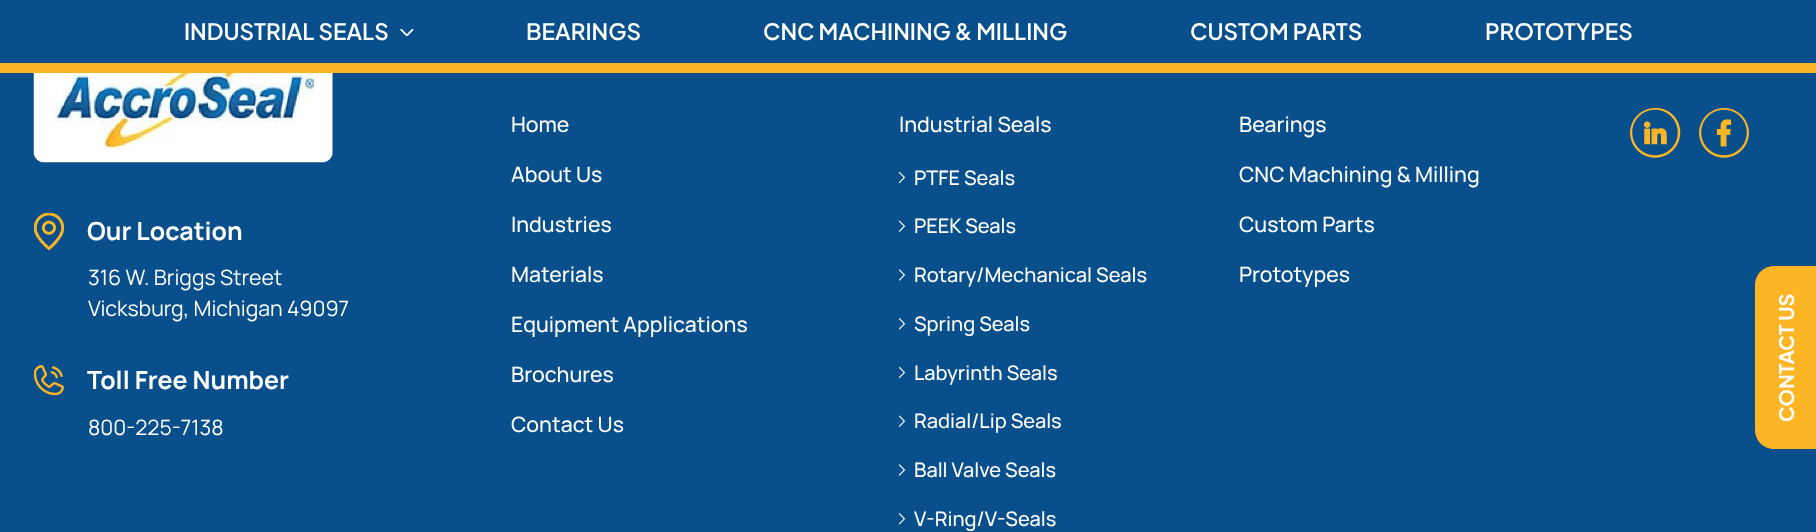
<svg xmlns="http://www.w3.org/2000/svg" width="1816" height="532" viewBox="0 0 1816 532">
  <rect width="100%" height="100%" fill="#084f8b"/>
  <rect x="0" y="63" width="1816" height="10" fill="#fbb525"/>
  <text x="184" y="40" font-family="Plus Jakarta Sans" font-size="22.5" font-weight="600" fill="#ffffff">INDUSTRIAL SEALS</text>
  <image x="400" y="29" width="14" height="7" href="img1.png"/>
  <text x="526" y="40" font-family="Plus Jakarta Sans" font-size="22.5" font-weight="600" fill="#ffffff">BEARINGS</text>
  <text x="763" y="40" font-family="Plus Jakarta Sans" font-size="22.5" font-weight="600" fill="#ffffff">CNC MACHINING &amp; MILLING</text>
  <text x="1190" y="40" font-family="Plus Jakarta Sans" font-size="22.5" font-weight="600" fill="#ffffff">CUSTOM PARTS</text>
  <text x="1485" y="40" font-family="Plus Jakarta Sans" font-size="22.5" font-weight="600" fill="#ffffff">PROTOTYPES</text>
  <image x="33" y="73" width="300" height="90" href="img2.png"/>
  <image x="34" y="213" width="30" height="37" href="img3.png"/>
  <text x="87" y="240" font-family="Manrope" font-size="25" font-weight="bold" fill="#ffffff">Our Location</text>
  <text x="88" y="285" font-family="Manrope" font-size="21.25" fill="#ffffff">316 W. Briggs Street</text>
  <text x="88" y="316" font-family="Manrope" font-size="21.25" fill="#ffffff">Vicksburg, Michigan 49097</text>
  <image x="34" y="365" width="30" height="30" href="img4.png"/>
  <text x="87" y="389" font-family="Manrope" font-size="25" font-weight="bold" fill="#ffffff">Toll Free Number</text>
  <text x="88" y="435" font-family="Manrope" font-size="21.25" fill="#ffffff">800-225-7138</text>
  <text x="511" y="132" font-family="Manrope" font-size="21.25" font-weight="500" fill="#ffffff">Home</text>
  <text x="511" y="182" font-family="Manrope" font-size="21.25" font-weight="500" fill="#ffffff">About Us</text>
  <text x="511" y="232" font-family="Manrope" font-size="21.25" font-weight="500" fill="#ffffff">Industries</text>
  <text x="511" y="282" font-family="Manrope" font-size="21.25" font-weight="500" fill="#ffffff">Materials</text>
  <text x="511" y="332" font-family="Manrope" font-size="21.25" font-weight="500" fill="#ffffff">Equipment Applications</text>
  <text x="511" y="382" font-family="Manrope" font-size="21.25" font-weight="500" fill="#ffffff">Brochures</text>
  <text x="511" y="432" font-family="Manrope" font-size="21.25" font-weight="500" fill="#ffffff">Contact Us</text>
  <text x="899" y="132" font-family="Manrope" font-size="21.25" font-weight="500" fill="#ffffff">Industrial Seals</text>
  <image x="899" y="171" width="6" height="13" href="img5.png"/>
  <text x="914" y="185" font-family="Manrope" font-size="20" font-weight="500" fill="#ffffff">PTFE Seals</text>
  <image x="899" y="220" width="6" height="12" href="img6.png"/>
  <text x="914" y="233" font-family="Manrope" font-size="20" font-weight="500" fill="#ffffff">PEEK Seals</text>
  <image x="899" y="269" width="6" height="12" href="img7.png"/>
  <text x="914" y="282" font-family="Manrope" font-size="20" font-weight="500" fill="#ffffff">Rotary/Mechanical Seals</text>
  <image x="899" y="318" width="6" height="12" href="img8.png"/>
  <text x="914" y="331" font-family="Manrope" font-size="20" font-weight="500" fill="#ffffff">Spring Seals</text>
  <image x="899" y="366" width="6" height="13" href="img5.png"/>
  <text x="914" y="380" font-family="Manrope" font-size="20" font-weight="500" fill="#ffffff">Labyrinth Seals</text>
  <image x="899" y="415" width="6" height="12" href="img6.png"/>
  <text x="914" y="428" font-family="Manrope" font-size="20" font-weight="500" fill="#ffffff">Radial/Lip Seals</text>
  <image x="899" y="464" width="6" height="12" href="img7.png"/>
  <text x="914" y="477" font-family="Manrope" font-size="20" font-weight="500" fill="#ffffff">Ball Valve Seals</text>
  <image x="899" y="513" width="6" height="12" href="img8.png"/>
  <text x="914" y="526" font-family="Manrope" font-size="20" font-weight="500" fill="#ffffff">V-Ring/V-Seals</text>
  <text x="1239" y="132" font-family="Manrope" font-size="21.25" font-weight="500" fill="#ffffff">Bearings</text>
  <text x="1239" y="182" font-family="Manrope" font-size="21.25" font-weight="500" fill="#ffffff">CNC Machining &amp; Milling</text>
  <text x="1239" y="232" font-family="Manrope" font-size="21.25" font-weight="500" fill="#ffffff">Custom Parts</text>
  <text x="1239" y="282" font-family="Manrope" font-size="21.25" font-weight="500" fill="#ffffff">Prototypes</text>
  <image x="1630" y="108" width="51" height="50" href="img9.png"/>
  <image x="1699" y="108" width="50" height="50" href="img10.png"/>
  <path d="M1816 449H1774C1763 449 1755 440 1755 430V285C1755 275 1763 266 1774 266H1816Z" fill="#fbb525"/>
  <text x="1794" y="422" transform="rotate(-90 1794 422)" font-family="Plus Jakarta Sans" font-size="20" font-weight="bold" fill="#ffffff">CONTACT US</text>
</svg>
